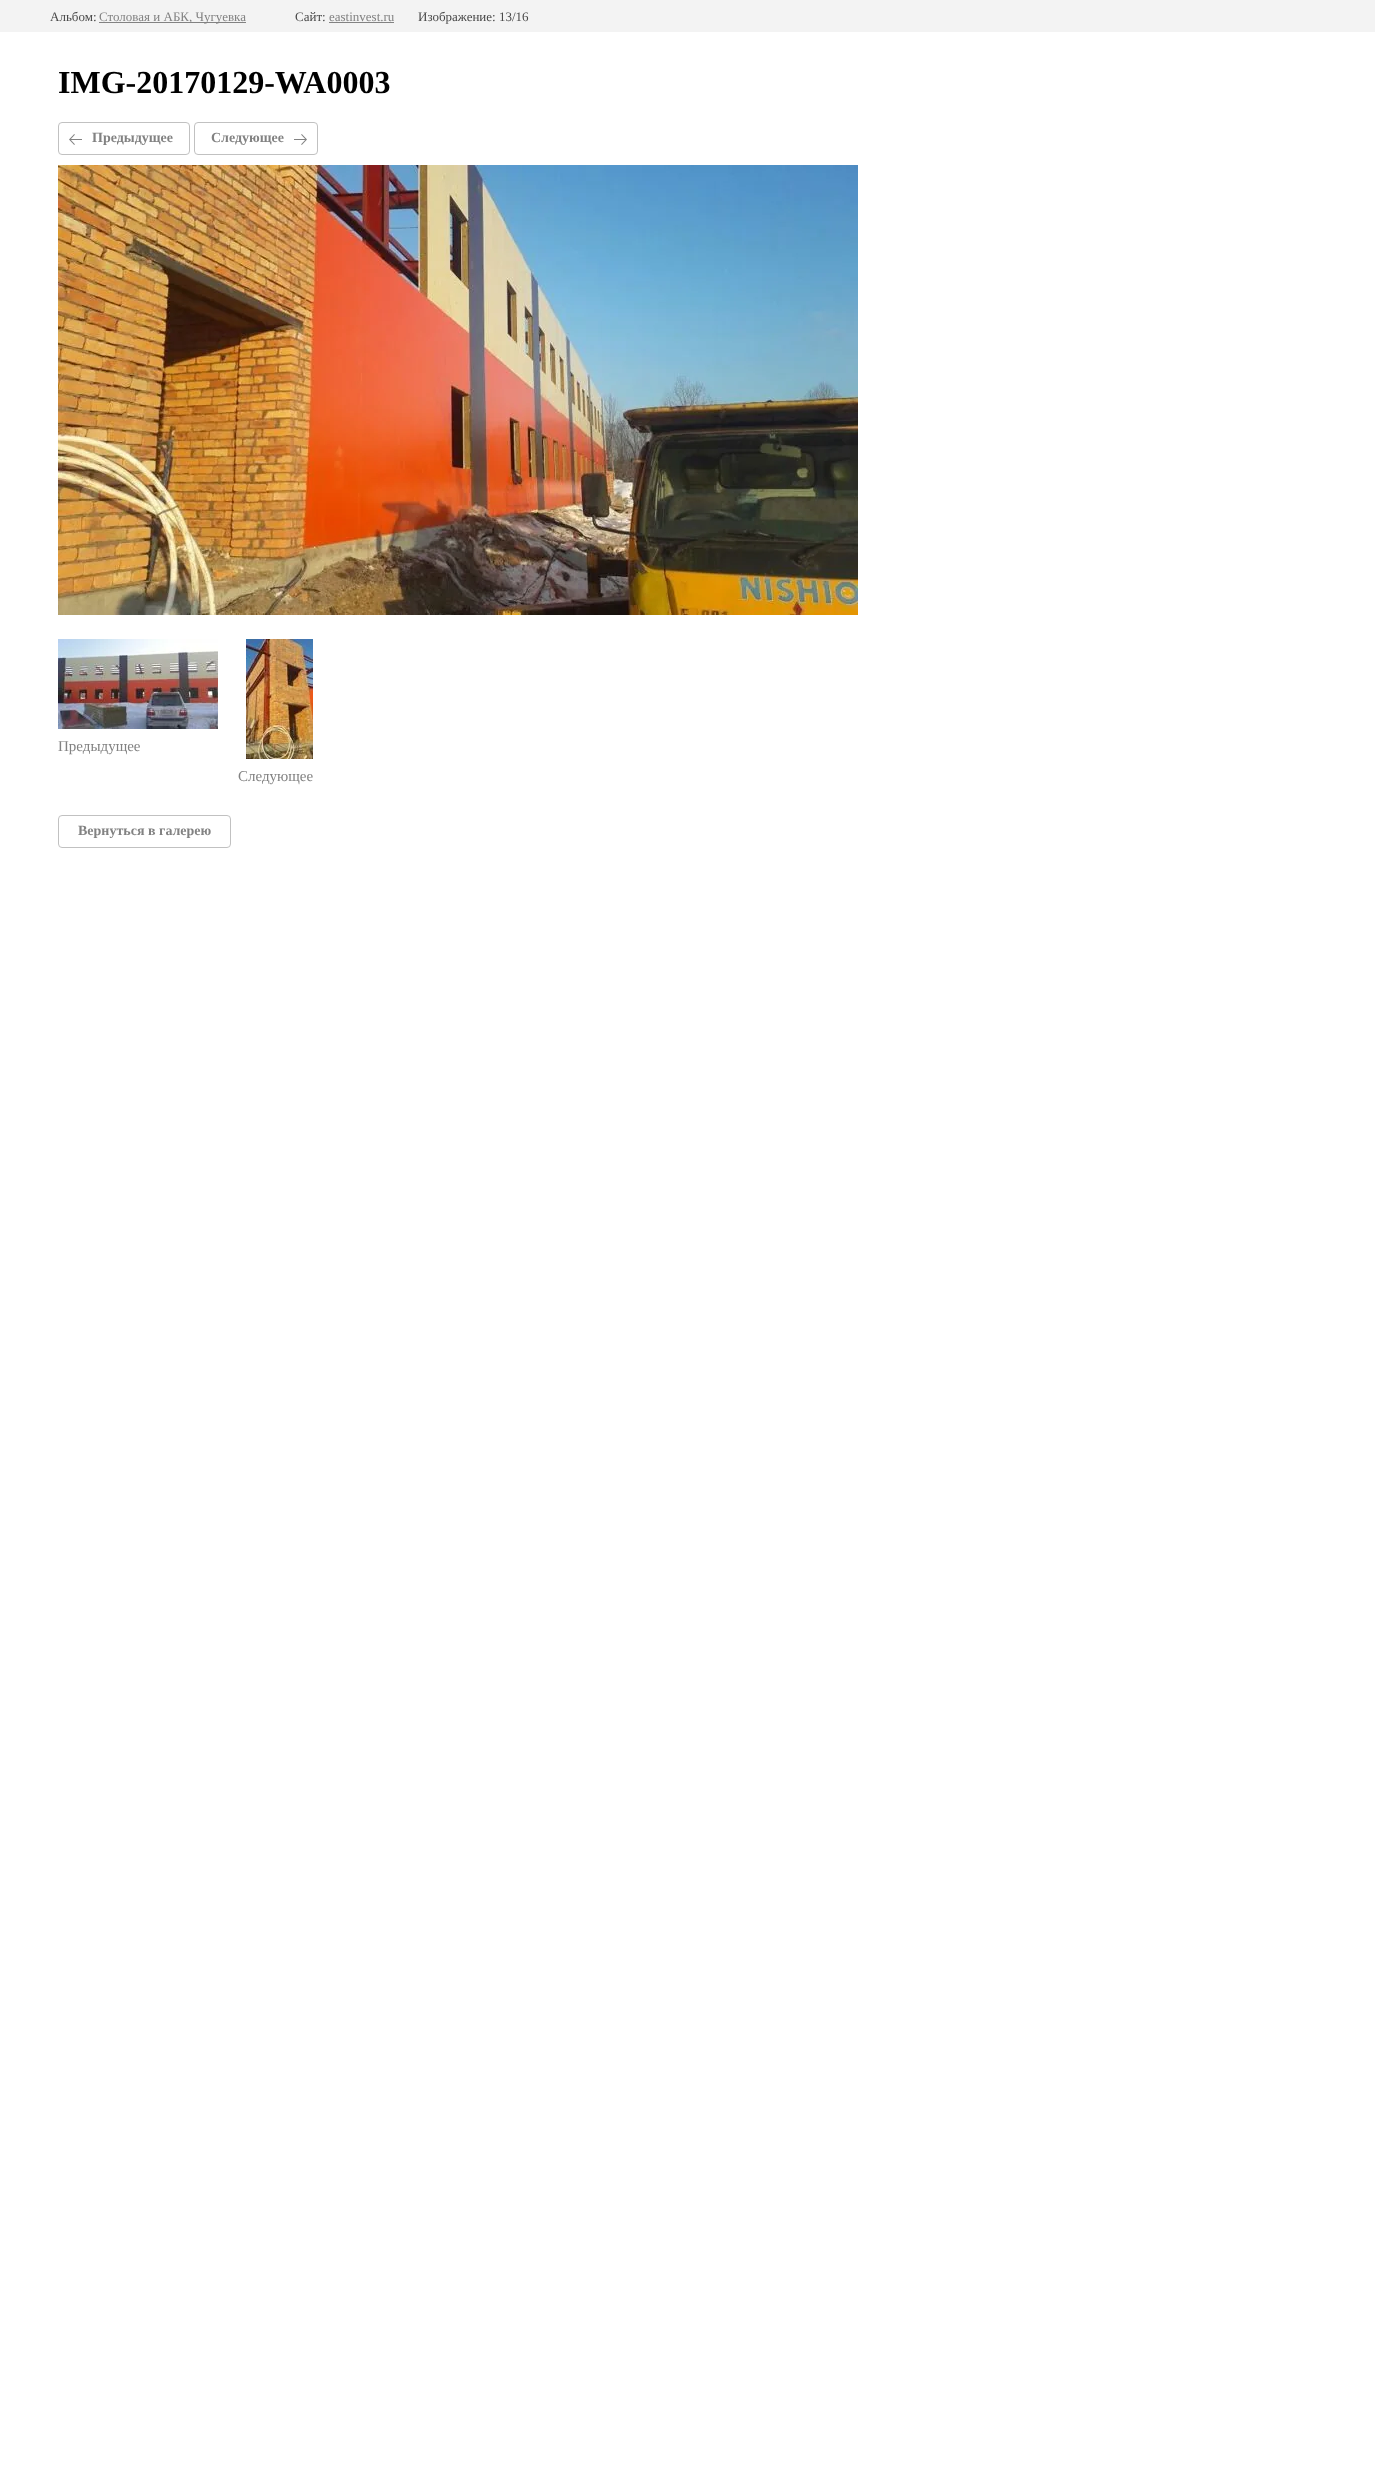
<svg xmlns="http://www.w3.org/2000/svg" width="1375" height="2474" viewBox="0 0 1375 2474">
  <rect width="100%" height="100%" fill="#ffffff"/>
  <rect x="0" y="0" width="1375" height="32" fill="#f3f3f3"/>
  <text x="50" y="21" font-family="Liberation Serif" font-size="13" fill="#484848">Альбом:</text>
  <rect x="99" y="22" width="147" height="1" fill="#828282"/>
  <text x="99" y="21" font-family="Liberation Serif" font-size="13" fill="#828282">Столовая и АБК, Чугуевка</text>
  <text x="295" y="21" font-family="Liberation Serif" font-size="13" fill="#484848">Сайт:</text>
  <text x="329" y="21" font-family="Liberation Serif" font-size="13" fill="#828282">eastinvest.ru</text>
  <rect x="329" y="22" width="65" height="1" fill="#828282"/>
  <text x="418" y="21" font-family="Liberation Serif" font-size="13" fill="#484848">Изображение: 13/16</text>
  <text x="58" y="93" font-family="Liberation Serif" font-size="32" font-weight="bold" fill="#000000">IMG-20170129-WA0003</text>
  <rect x="58.5" y="122.5" width="131" height="32" rx="3.5" fill="none" stroke="#c1c1c1"/>
  <image x="69" y="134" width="13" height="11" href="img1.png"/>
  <text x="92" y="142" font-family="Liberation Serif" font-size="14" font-weight="bold" fill="#828282">Предыдущее</text>
  <rect x="194.5" y="122.5" width="123" height="32" rx="3.5" fill="none" stroke="#c1c1c1"/>
  <text x="211" y="142" font-family="Liberation Serif" font-size="14" font-weight="bold" fill="#828282">Следующее</text>
  <image x="294" y="134" width="13" height="11" href="img2.png"/>
  <image x="58" y="165" width="800" height="450" href="img3.png"/>
  <image x="58" y="639" width="160" height="90" href="img4.png"/>
  <text x="58" y="751" font-family="Liberation Serif" font-size="15" fill="#828282">Предыдущее</text>
  <image x="246" y="639" width="67" height="120" href="img5.png"/>
  <text x="238" y="781" font-family="Liberation Serif" font-size="15" fill="#828282">Следующее</text>
  <rect x="58.5" y="815.5" width="172" height="32" rx="3.5" fill="none" stroke="#c1c1c1"/>
  <text x="78" y="835" font-family="Liberation Serif" font-size="14" font-weight="bold" fill="#828282">Вернуться в галерею</text>
</svg>
